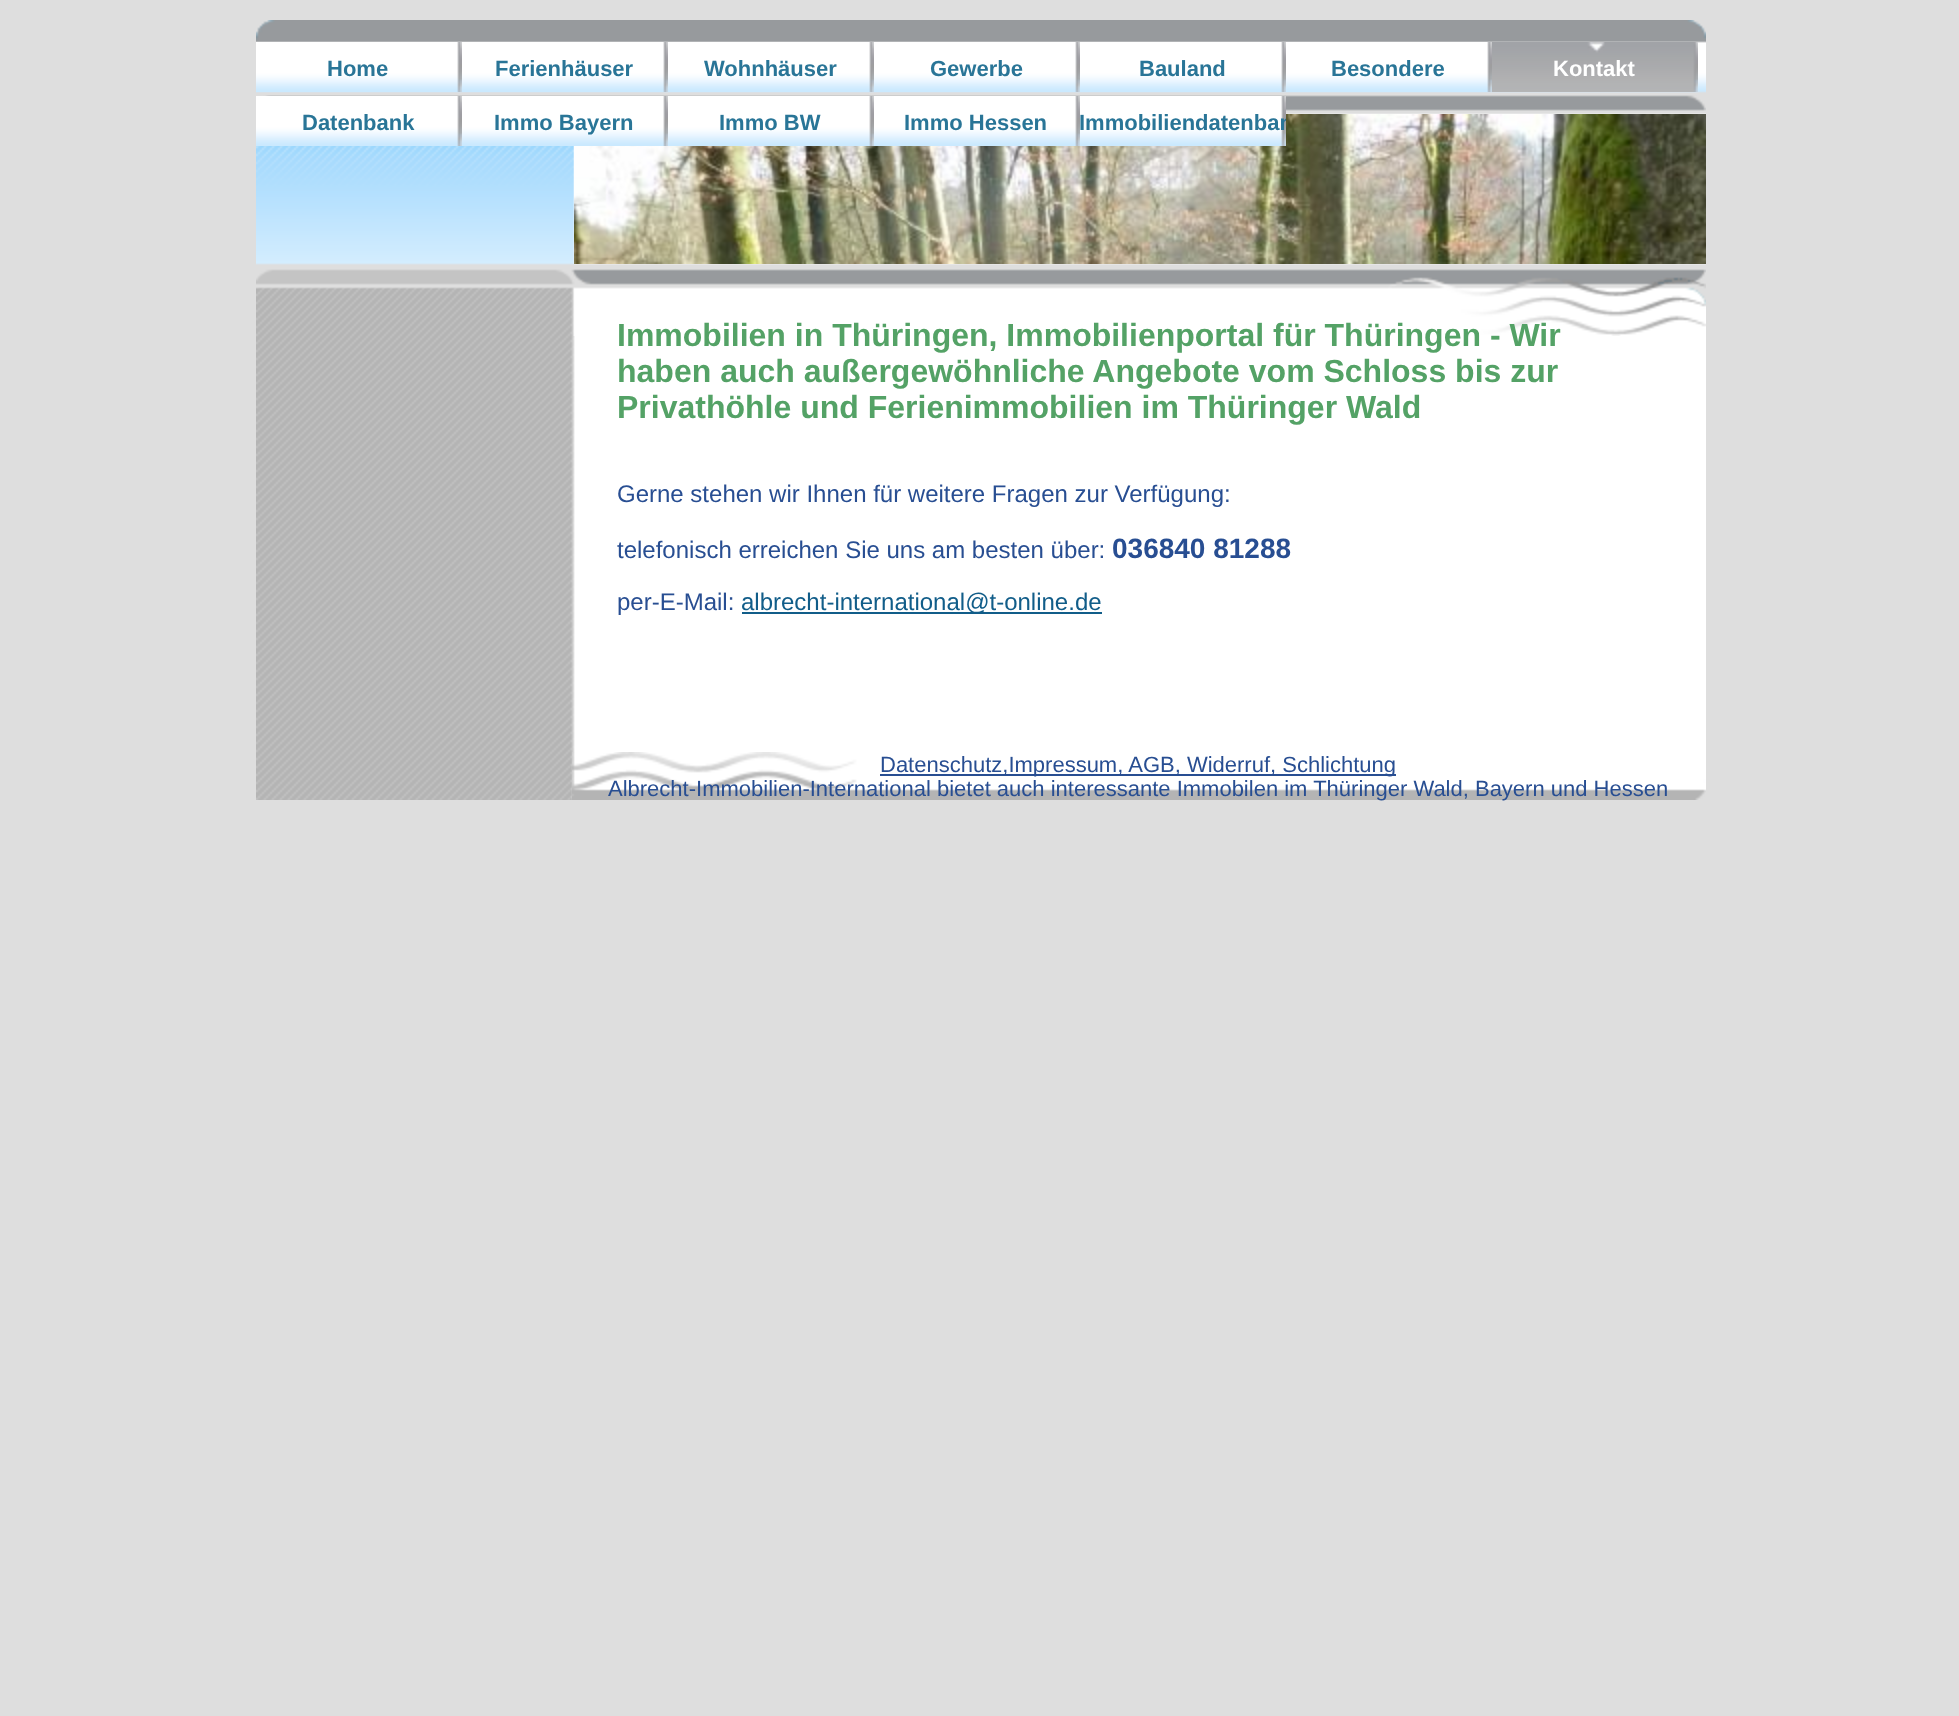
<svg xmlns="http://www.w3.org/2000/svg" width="1959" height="1716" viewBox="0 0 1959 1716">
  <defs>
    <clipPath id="clip1"><rect x="1080" y="96" width="206" height="54"/></clipPath>
  </defs>
  <rect width="100%" height="100%" fill="#dedede"/>
  <image x="256" y="287" width="1450" height="513" href="img1.png"/>
  <image x="256" y="20" width="1450" height="316" href="img2.png"/>
  <image x="574" y="114" width="1132" height="150" href="img3.png"/>
  <image x="256" y="42" width="206" height="50" href="img4.png"/>
  <text x="327" y="76" font-family="Liberation Sans" font-size="22" font-weight="bold" fill="#297597">Home</text>
  <image x="462" y="42" width="206" height="50" href="img4.png"/>
  <text x="495" y="76" font-family="Liberation Sans" font-size="22" font-weight="bold" fill="#297597">Ferienhäuser</text>
  <image x="668" y="42" width="206" height="50" href="img4.png"/>
  <text x="704" y="76" font-family="Liberation Sans" font-size="22" font-weight="bold" fill="#297597">Wohnhäuser</text>
  <image x="874" y="42" width="206" height="50" href="img4.png"/>
  <text x="930" y="76" font-family="Liberation Sans" font-size="22" font-weight="bold" fill="#297597">Gewerbe</text>
  <image x="1080" y="42" width="206" height="50" href="img4.png"/>
  <text x="1139" y="76" font-family="Liberation Sans" font-size="22" font-weight="bold" fill="#297597">Bauland</text>
  <image x="1286" y="42" width="206" height="50" href="img4.png"/>
  <text x="1331" y="76" font-family="Liberation Sans" font-size="22" font-weight="bold" fill="#297597">Besondere</text>
  <image x="1492" y="42" width="206" height="50" href="img5.png"/>
  <text x="1553" y="76" font-family="Liberation Sans" font-size="22" font-weight="bold" fill="#ffffff">Kontakt</text>
  <image x="256" y="96" width="206" height="50" href="img4.png"/>
  <text x="302" y="130" font-family="Liberation Sans" font-size="22" font-weight="bold" fill="#297597">Datenbank</text>
  <image x="462" y="96" width="206" height="50" href="img4.png"/>
  <text x="494" y="130" font-family="Liberation Sans" font-size="22" font-weight="bold" fill="#297597">Immo Bayern</text>
  <image x="668" y="96" width="206" height="50" href="img4.png"/>
  <text x="719" y="130" font-family="Liberation Sans" font-size="22" font-weight="bold" fill="#297597">Immo BW</text>
  <image x="874" y="96" width="206" height="50" href="img4.png"/>
  <text x="904" y="130" font-family="Liberation Sans" font-size="22" font-weight="bold" fill="#297597">Immo Hessen</text>
  <image x="1080" y="96" width="206" height="50" href="img4.png"/>
  <g clip-path="url(#clip1)">
    <text x="1079" y="130" font-family="Liberation Sans" font-size="22" font-weight="bold" fill="#297597">Immobiliendatenban</text>
  </g>
  <text x="617" y="346" font-family="Liberation Sans" font-size="32" font-weight="bold" fill="#54a266">Immobilien in Thüringen, Immobilienportal für Thüringen - Wir</text>
  <text x="617" y="382" font-family="Liberation Sans" font-size="32" font-weight="bold" fill="#54a266">haben auch außergewöhnliche Angebote vom Schloss bis zur</text>
  <text x="617" y="418" font-family="Liberation Sans" font-size="32" font-weight="bold" fill="#54a266">Privathöhle und Ferienimmobilien im Thüringer Wald</text>
  <text x="617" y="502" font-family="Liberation Sans" font-size="24" fill="#284e92">Gerne stehen wir Ihnen für weitere Fragen zur Verfügung:</text>
  <text x="617" y="558" font-family="Liberation Sans" font-size="24" fill="#284e92">telefonisch erreichen Sie uns am besten über:</text>
  <text x="1112" y="558" font-family="Liberation Sans" font-size="28" font-weight="bold" fill="#284e92">036840 81288</text>
  <text x="617" y="610" font-family="Liberation Sans" font-size="24" fill="#284e92">per-E-Mail:</text>
  <rect x="742" y="612" width="360" height="2" fill="#115d89"/>
  <text x="741" y="610" font-family="Liberation Sans" font-size="24" fill="#115d89">albrecht-international@t-online.de</text>
  <image x="572" y="752" width="1134" height="48" href="img6.png"/>
  <rect x="880" y="774" width="516" height="2" fill="#284e92"/>
  <text x="880" y="772" font-family="Liberation Sans" font-size="22" fill="#284e92">Datenschutz,Impressum, AGB, Widerruf, Schlichtung</text>
  <text x="608" y="796" font-family="Liberation Sans" font-size="22" fill="#284e92">Albrecht-Immobilien-International bietet auch interessante Immobilen im Thüringer Wald, Bayern und Hessen</text>
</svg>
